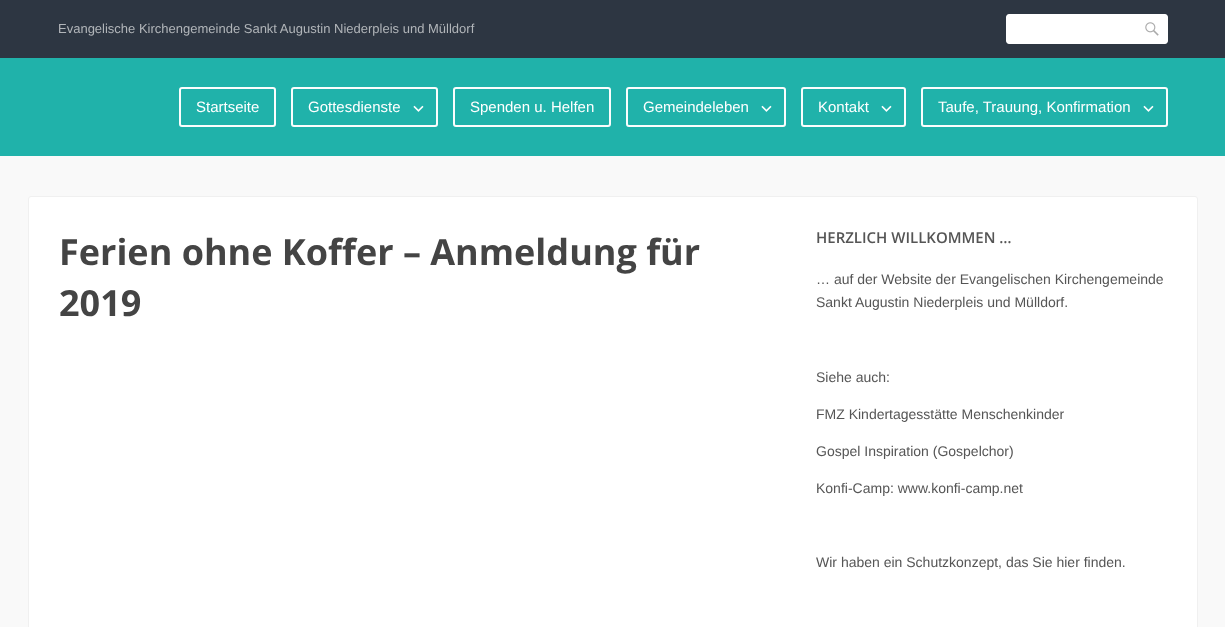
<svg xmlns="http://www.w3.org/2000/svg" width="1225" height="627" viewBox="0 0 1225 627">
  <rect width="100%" height="100%" fill="#f9f9f9"/>
  <rect x="0" y="0" width="1225" height="58" fill="#2d3642"/>
  <text x="58" y="33" font-family="Liberation Sans" font-size="13" fill="#b1b5b9">Evangelische Kirchengemeinde Sankt Augustin Niederpleis und Mülldorf</text>
  <path d="M1009 14H1136V44H1009C1007.5 44 1006 42.5 1006 41V17C1006 15.5 1007.5 14 1009 14Z" fill="#ffffff"/>
  <path d="M1136 14H1165C1166.5 14 1168 15.5 1168 17V41C1168 42.5 1166.5 44 1165 44H1136Z" fill="#ffffff"/>
  <image x="1145" y="22" width="14" height="14" href="img1.png"/>
  <rect x="0" y="58" width="1225" height="98" fill="#20b2aa"/>
  <rect x="180" y="88" width="95" height="38" rx="2" fill="none" stroke="#fbfdfd" stroke-width="2"/>
  <text x="196" y="112" font-family="Liberation Sans" font-size="15" fill="#ffffff">Startseite</text>
  <rect x="292" y="88" width="145" height="38" rx="2" fill="none" stroke="#fbfdfd" stroke-width="2"/>
  <text x="308" y="112" font-family="Liberation Sans" font-size="15" fill="#ffffff">Gottesdienste</text>
  <image x="413" y="105" width="11" height="7" href="img2.png"/>
  <rect x="454" y="88" width="156" height="38" rx="2" fill="none" stroke="#fbfdfd" stroke-width="2"/>
  <text x="470" y="112" font-family="Liberation Sans" font-size="15" fill="#ffffff">Spenden u. Helfen</text>
  <rect x="627" y="88" width="158" height="38" rx="2" fill="none" stroke="#fbfdfd" stroke-width="2"/>
  <text x="643" y="112" font-family="Liberation Sans" font-size="15" fill="#ffffff">Gemeindeleben</text>
  <image x="761" y="105" width="11" height="7" href="img2.png"/>
  <rect x="802" y="88" width="103" height="38" rx="2" fill="none" stroke="#fbfdfd" stroke-width="2"/>
  <text x="818" y="112" font-family="Liberation Sans" font-size="15" fill="#ffffff">Kontakt</text>
  <image x="881" y="105" width="11" height="7" href="img2.png"/>
  <rect x="922" y="88" width="245" height="38" rx="2" fill="none" stroke="#fbfdfd" stroke-width="2"/>
  <text x="938" y="112" font-family="Liberation Sans" font-size="15" fill="#ffffff">Taufe, Trauung, Konfirmation</text>
  <image x="1143" y="105" width="11" height="7" href="img2.png"/>
  <rect x="28.5" y="196.5" width="1169" height="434" rx="2.5" fill="#ffffff" stroke="#f0f0f0"/>
  <text x="59" y="265" font-family="Open Sans" font-size="36" font-weight="bold" fill="#444444">Ferien ohne Koffer – Anmeldung für</text>
  <text x="59" y="316" font-family="Open Sans" font-size="36" font-weight="bold" fill="#444444">2019</text>
  <text x="816" y="243" font-family="Open Sans" font-size="15" font-weight="600" fill="#555555">HERZLICH WILLKOMMEN …</text>
  <text x="816" y="284" font-family="Liberation Sans" font-size="14" fill="#555555">… auf der Website der Evangelischen Kirchengemeinde</text>
  <text x="816" y="307" font-family="Liberation Sans" font-size="14" fill="#555555">Sankt Augustin Niederpleis und Mülldorf.</text>
  <text x="816" y="382" font-family="Liberation Sans" font-size="14" fill="#555555">Siehe auch:</text>
  <text x="816" y="419" font-family="Liberation Sans" font-size="14" fill="#555555">FMZ Kindertagesstätte Menschenkinder</text>
  <text x="816" y="456" font-family="Liberation Sans" font-size="14" fill="#555555">Gospel Inspiration (Gospelchor)</text>
  <text x="816" y="493" font-family="Liberation Sans" font-size="14" fill="#555555">Konfi-Camp: www.konfi-camp.net</text>
  <text x="816" y="567" font-family="Liberation Sans" font-size="14" fill="#555555">Wir haben ein Schutzkonzept, das Sie hier finden.</text>
</svg>
